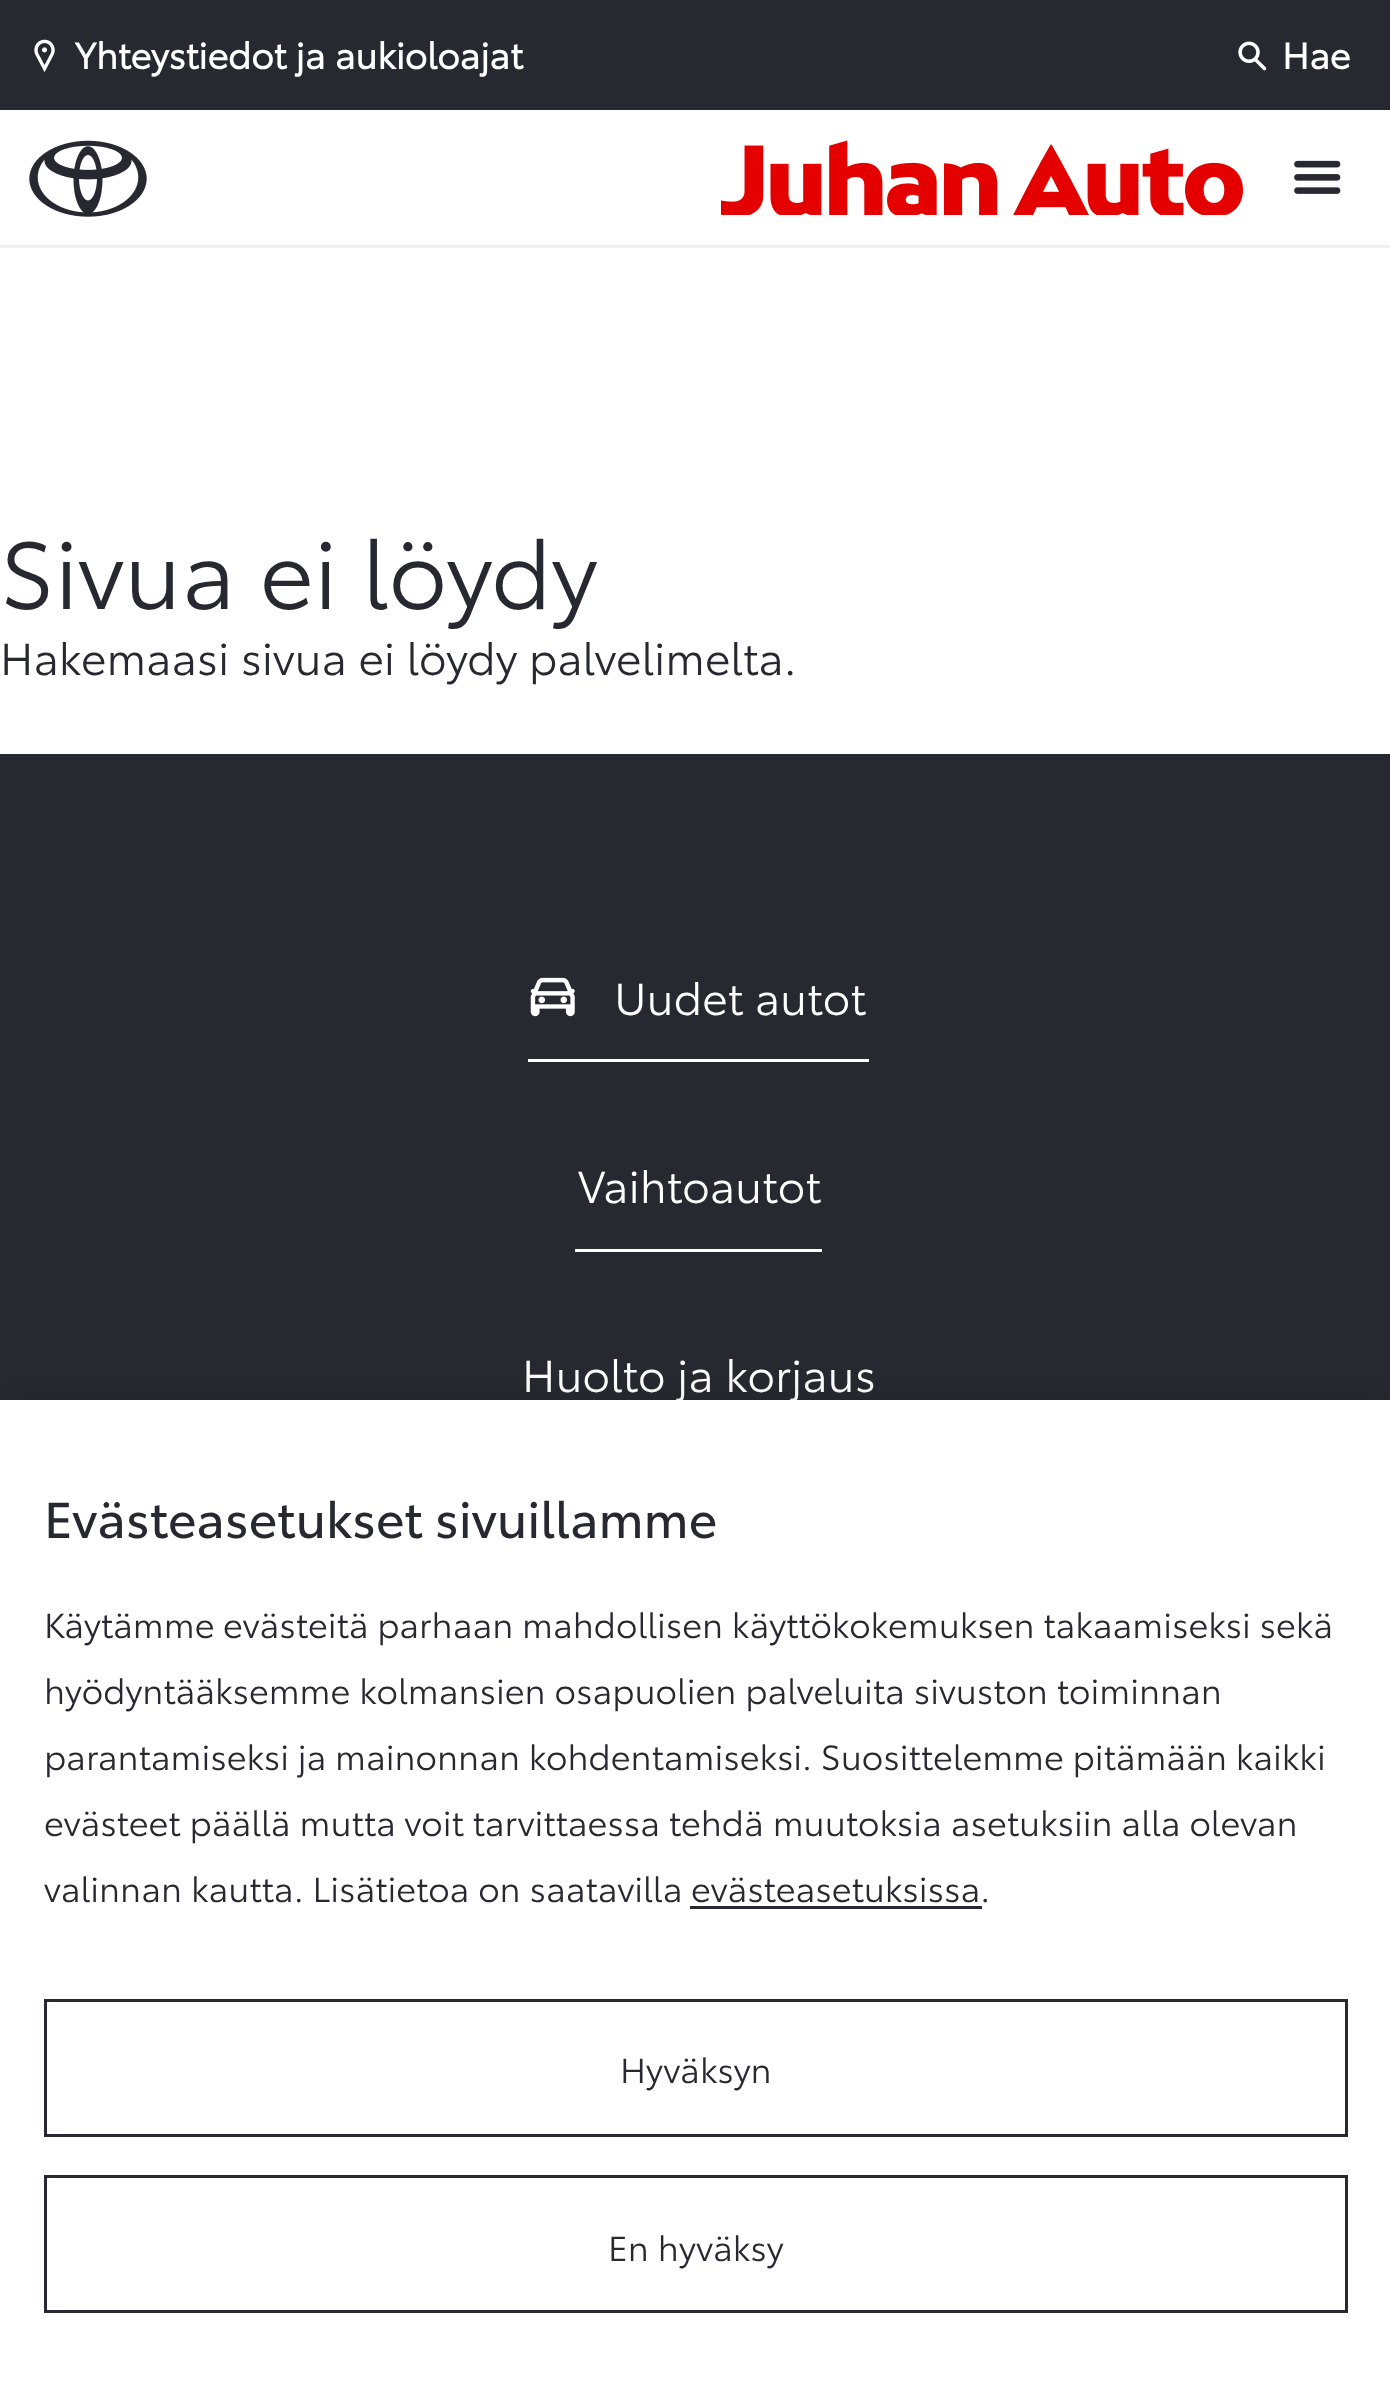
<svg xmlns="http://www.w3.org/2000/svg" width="1390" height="2394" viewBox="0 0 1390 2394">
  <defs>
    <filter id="blur1" x="-50%" y="-200%" width="200%" height="500%"><feGaussianBlur stdDeviation="14"/></filter>
  </defs>
  <rect width="100%" height="100%" fill="#ffffff"/>
  <rect x="0" y="0" width="1390" height="110" fill="#282830"/>
  <image x="34" y="39" width="21" height="33" href="img1.png"/>
  <text x="75" y="69" font-family="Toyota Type" font-size="35.75" font-weight="bold" fill="#ffffff">Yhteystiedot ja aukioloajat</text>
  <image x="1238" y="41" width="29" height="30" href="img2.png"/>
  <text x="1282" y="69" font-family="Toyota Type" font-size="35.75" font-weight="bold" fill="#ffffff">Hae</text>
  <rect x="0" y="245" width="1390" height="3" fill="#f2f2f2"/>
  <image x="29" y="140" width="118" height="77" href="img3.png"/>
  <image x="721" y="140" width="522" height="75" href="img4.png"/>
  <image x="1294" y="160" width="47" height="34" href="img5.png"/>
  <text x="0" y="609" font-family="Toyota Type" font-size="93.5" fill="#282830">Sivua ei löydy</text>
  <text x="0" y="675" font-family="Toyota Type" font-size="44" fill="#282830">Hakemaasi sivua ei löydy palvelimelta.</text>
  <rect x="0" y="754" width="1390" height="646" fill="#282830"/>
  <rect x="528" y="1059" width="341" height="3" fill="#ffffff"/>
  <image x="530" y="977" width="45" height="40" href="img6.png"/>
  <text x="614" y="1015" font-family="Toyota Type" font-size="44" fill="#ffffff">Uudet autot</text>
  <rect x="575" y="1249" width="247" height="3" fill="#ffffff"/>
  <text x="578" y="1203" font-family="Toyota Type" font-size="44" fill="#ffffff">Vaihtoautot</text>
  <text x="522" y="1392" font-family="Toyota Type" font-size="44" fill="#ffffff">Huolto ja korjaus</text>
  <rect x="0" y="1394" width="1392" height="996" fill="#000000" fill-opacity="0.1" filter="url(#blur1)"/>
  <rect x="0" y="1400" width="1390" height="994" fill="#ffffff"/>
  <text x="44" y="1538" font-family="'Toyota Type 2'" font-size="49.5" fill="#282830">Evästeasetukset sivuillamme</text>
  <text x="44" y="1638" word-spacing="-0.25" font-family="Toyota Type" font-size="34.3" fill="#282830">Käytämme evästeitä parhaan mahdollisen käyttökokemuksen takaamiseksi sekä</text>
  <text x="44" y="1704" font-family="Toyota Type" font-size="34.3" fill="#282830">hyödyntääksemme kolmansien osapuolien palveluita sivuston toiminnan</text>
  <text x="44" y="1770" word-spacing="-0.25" font-family="Toyota Type" font-size="34.3" fill="#282830">parantamiseksi ja mainonnan kohdentamiseksi. Suosittelemme pitämään kaikki</text>
  <text x="44" y="1836" word-spacing="-0.1" font-family="Toyota Type" font-size="34.3" fill="#282830">evästeet päällä mutta voit tarvittaessa tehdä muutoksia asetuksiin alla olevan</text>
  <text x="44" y="1902" font-family="Toyota Type" font-size="34.3" fill="#282830">valinnan kautta. Lisätietoa on saatavilla</text>
  <text x="691" y="1902" font-family="Toyota Type" font-size="34.3" fill="#282830">evästeasetuksissa.</text>
  <rect x="690" y="1906" width="292" height="3" fill="#282830"/>
  <rect x="45.5" y="2000.5" width="1301" height="135" fill="none" stroke="#282830" stroke-width="3"/>
  <text x="620" y="2083" font-family="Toyota Type" font-size="34.3" fill="#282830">Hyväksyn</text>
  <rect x="45.5" y="2176.5" width="1301" height="135" fill="none" stroke="#282830" stroke-width="3"/>
  <text x="608" y="2261" font-family="Toyota Type" font-size="34.3" fill="#282830">En hyväksy</text>
</svg>
